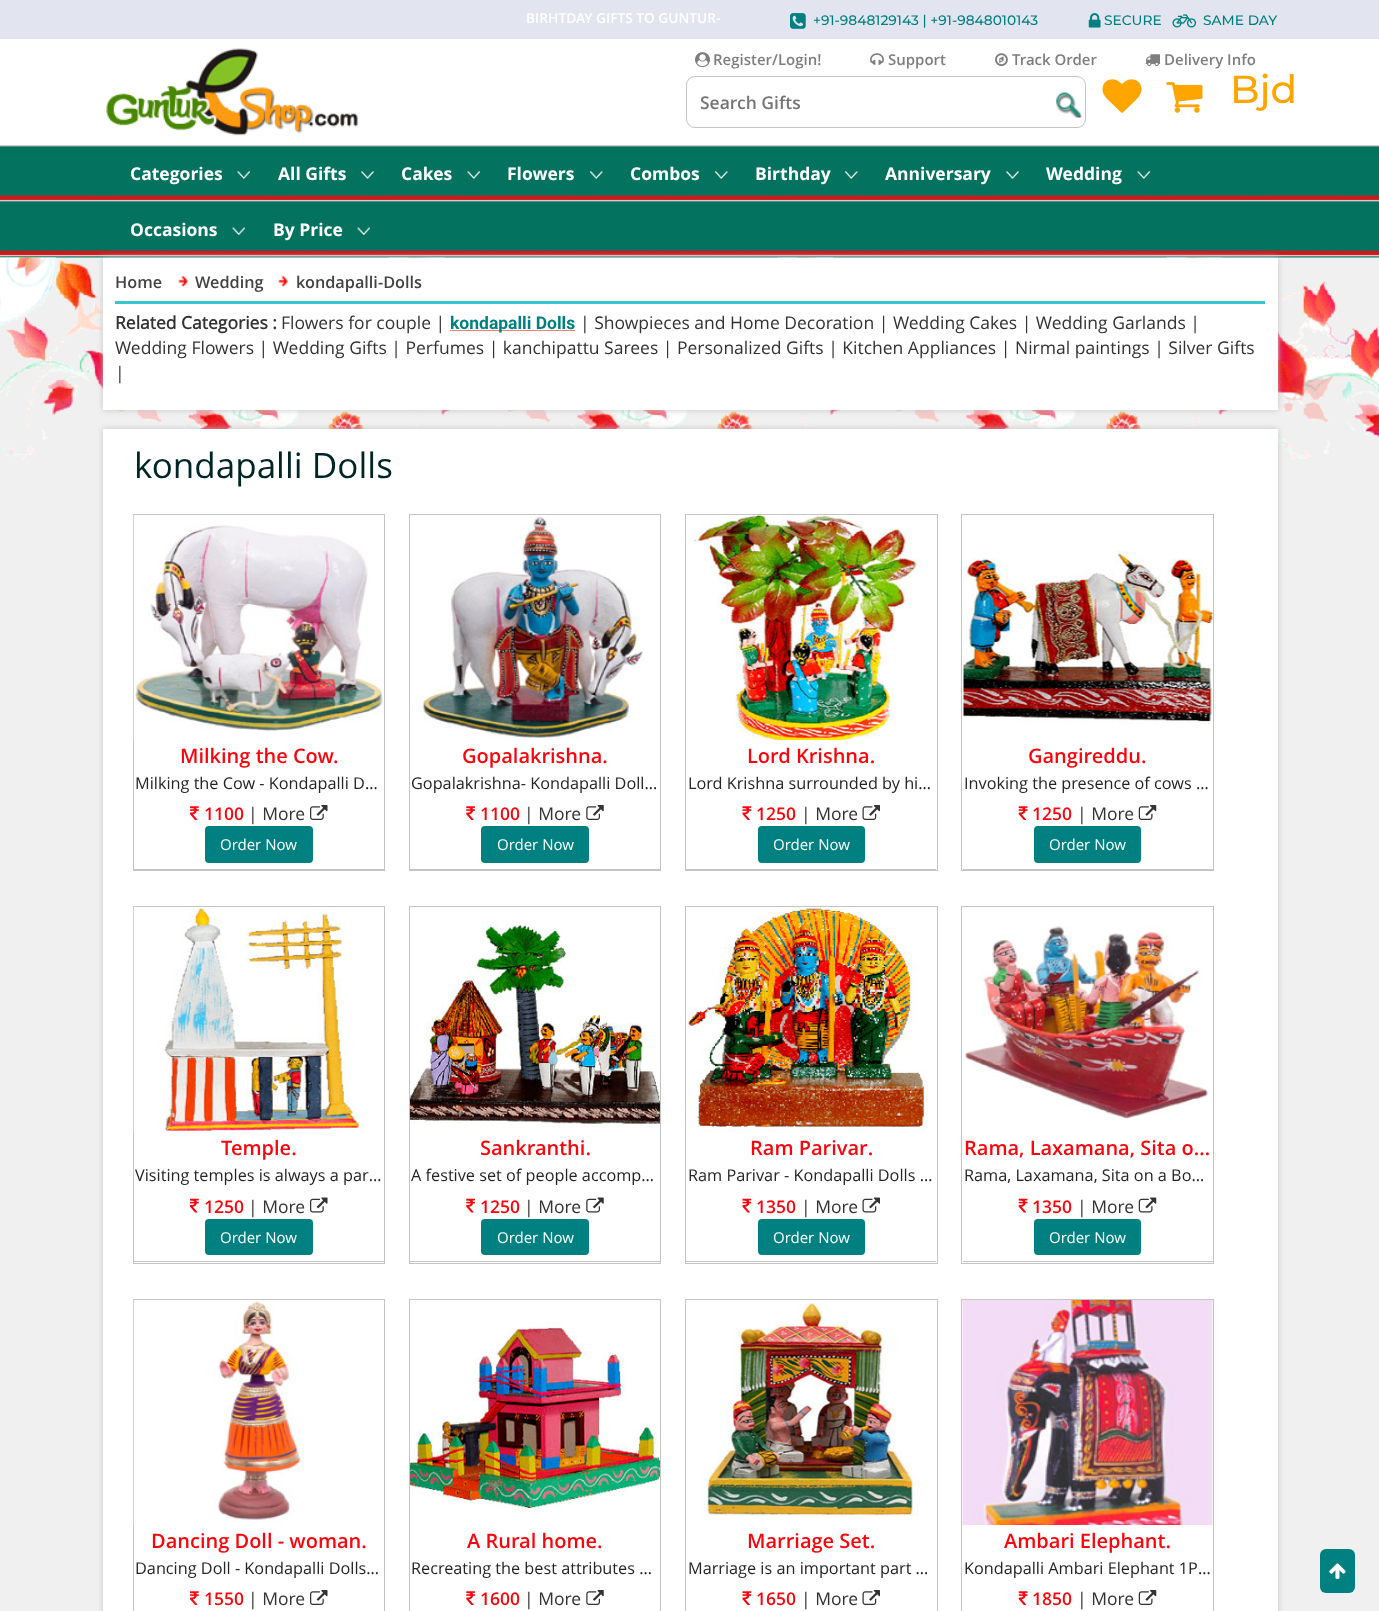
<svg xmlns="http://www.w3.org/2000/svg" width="1379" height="1611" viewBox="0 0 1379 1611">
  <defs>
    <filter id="blur1" x="-50%" y="-200%" width="200%" height="500%"><feGaussianBlur stdDeviation="3"/></filter>
  </defs>
  <rect width="100%" height="100%" fill="#f0f0f0"/>
  <rect x="0" y="0" width="1379" height="39" fill="#e2e4ef"/>
  <text x="526" y="23" font-family="Open Sans" font-size="13.75" font-weight="600" fill="#ffffff">BIRHTDAY GIFTS TO GUNTUR-</text>
  <image x="790" y="13" width="16" height="16" href="img1.png"/>
  <text x="813" y="25" font-family="Montserrat" font-size="13.75" font-weight="500" fill="#008080">+91-9848129143 | +91-9848010143</text>
  <image x="1088" y="13" width="13" height="15" href="img2.png"/>
  <text x="1104" y="25" font-family="Montserrat" font-size="13.75" font-weight="500" fill="#008080">SECURE</text>
  <image x="1172" y="14" width="25" height="14" href="img3.png"/>
  <text x="1203" y="25" font-family="Montserrat" font-size="13.75" font-weight="500" fill="#008080">SAME DAY</text>
  <rect x="0" y="39" width="1379" height="106" fill="#ffffff"/>
  <image x="106" y="48" width="252" height="88" href="img4.png"/>
  <image x="695" y="52" width="15" height="16" href="img5.png"/>
  <text x="713" y="65" font-family="Open Sans" font-size="15" font-weight="600" fill="#7e7e7e">Register/Login!</text>
  <image x="870" y="53" width="14" height="12" href="img6.png"/>
  <text x="888" y="65" font-family="Open Sans" font-size="15" font-weight="600" fill="#7e7e7e">Support</text>
  <image x="995" y="53" width="13" height="14" href="img7.png"/>
  <text x="1012" y="65" font-family="Open Sans" font-size="15" font-weight="600" fill="#7e7e7e">Track Order</text>
  <image x="1145" y="54" width="15" height="12" href="img8.png"/>
  <text x="1164" y="65" font-family="Open Sans" font-size="15" font-weight="600" fill="#7e7e7e">Delivery Info</text>
  <rect x="686.5" y="76.5" width="399" height="51" rx="8.5" fill="none" stroke="#c4c4c4"/>
  <text x="700" y="109" font-family="Open Sans" font-size="17.5" font-weight="600" fill="#757575">Search Gifts</text>
  <image x="1056" y="92" width="26" height="26" href="img9.png"/>
  <image x="1102" y="79" width="40" height="34" href="img10.png"/>
  <image x="1166" y="82" width="37" height="31" href="img11.png"/>
  <text x="1230" y="103" font-family="Montserrat" font-size="39" font-weight="500" fill="#ffa500">Bjd</text>
  <image x="0" y="145" width="1379" height="113" href="img12.png"/>
  <text x="130" y="180" font-family="Open Sans" font-size="17.5" font-weight="bold" fill="#ffffff">Categories</text>
  <image x="237" y="171" width="13" height="8" href="img13.png"/>
  <text x="278" y="180" font-family="Open Sans" font-size="17.5" font-weight="bold" fill="#ffffff">All Gifts</text>
  <image x="361" y="171" width="13" height="8" href="img14.png"/>
  <text x="401" y="180" font-family="Open Sans" font-size="17.5" font-weight="bold" fill="#ffffff">Cakes</text>
  <image x="467" y="171" width="13" height="8" href="img13.png"/>
  <text x="507" y="180" font-family="Open Sans" font-size="17.5" font-weight="bold" fill="#ffffff">Flowers</text>
  <image x="590" y="171" width="13" height="8" href="img15.png"/>
  <text x="630" y="180" font-family="Open Sans" font-size="17.5" font-weight="bold" fill="#ffffff">Combos</text>
  <image x="715" y="171" width="13" height="8" href="img15.png"/>
  <text x="755" y="180" font-family="Open Sans" font-size="17.5" font-weight="bold" fill="#ffffff">Birthday</text>
  <image x="845" y="171" width="13" height="8" href="img15.png"/>
  <text x="885" y="180" font-family="Open Sans" font-size="17.5" font-weight="bold" fill="#ffffff">Anniversary</text>
  <image x="1006" y="171" width="13" height="8" href="img14.png"/>
  <text x="1046" y="180" font-family="Open Sans" font-size="17.5" font-weight="bold" fill="#ffffff">Wedding</text>
  <image x="1137" y="171" width="13" height="8" href="img13.png"/>
  <text x="130" y="236" font-family="Open Sans" font-size="17.5" font-weight="bold" fill="#ffffff">Occasions</text>
  <image x="232" y="227" width="13" height="8" href="img16.png"/>
  <text x="273" y="236" font-family="Open Sans" font-size="17.5" font-weight="bold" fill="#ffffff">By Price</text>
  <image x="357" y="227" width="13" height="8" href="img16.png"/>
  <image x="0" y="257" width="1379" height="204" href="img17.png"/>
  <rect x="103" y="258" width="1175" height="152" fill="#c4c4c4" filter="url(#blur1)"/>
  <rect x="103" y="258" width="1175" height="152" fill="#ffffff"/>
  <text x="115" y="288" font-family="Open Sans" font-size="16.25" font-weight="600" fill="#434343">Home</text>
  <image x="178" y="276" width="10" height="11" href="img18.png"/>
  <text x="195" y="288" font-family="Open Sans" font-size="16.25" font-weight="600" fill="#434343">Wedding</text>
  <image x="278" y="276" width="10" height="11" href="img19.png"/>
  <text x="296" y="288" font-family="Open Sans" font-size="16.25" font-weight="600" fill="#434343">kondapalli-Dolls</text>
  <rect x="115" y="301" width="1150" height="3" fill="#37c6ce"/>
  <text x="115" y="329" font-family="'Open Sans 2'" font-size="17.5" font-weight="bold" fill="#333333">Related Categories :</text>
  <text x="281" y="329" font-family="Open Sans" font-size="17.5" fill="#333333">Flowers for couple |</text>
  <rect x="450" y="330" width="125" height="1" fill="#fa8072"/>
  <text x="450" y="329" font-family="Roboto" font-size="17.5" font-weight="bold" fill="#008080">kondapalli Dolls</text>
  <text x="580" y="329" font-family="Open Sans" font-size="17.5" fill="#333333">| Showpieces and Home Decoration | Wedding Cakes | Wedding Garlands |</text>
  <text x="115" y="354" font-family="Open Sans" font-size="17.5" fill="#333333">Wedding Flowers | Wedding Gifts | Perfumes | kanchipattu Sarees | Personalized Gifts | Kitchen Appliances | Nirmal paintings | Silver Gifts</text>
  <text x="115" y="379" font-family="Open Sans" font-size="17.5" fill="#333333">|</text>
  <rect x="103" y="429" width="1175" height="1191" fill="#c4c4c4" filter="url(#blur1)"/>
  <rect x="103" y="429" width="1175" height="1182" fill="#ffffff"/>
  <text x="134" y="478" font-family="Open Sans" font-size="35" fill="#002525">kondapalli Dolls</text>
  <rect x="133.5" y="514.5" width="251" height="356" fill="none" stroke="#c4c4c4"/>
  <image x="133" y="515" width="251" height="225" href="img20.png"/>
  <text x="180" y="763" font-family="Open Sans" font-size="20" font-weight="600" fill="#f9050d">Milking the Cow.</text>
  <text x="135" y="789" font-family="Open Sans" font-size="16.25" fill="#252525">Milking the Cow - Kondapalli D…</text>
  <rect x="134" y="869" width="250" height="1" fill="#c4c4c4"/>
  <image x="190" y="806" width="9" height="14" href="img21.png"/>
  <text x="204" y="820" font-family="Open Sans" font-size="17.5" font-weight="600" fill="#f9050d">1100</text>
  <text x="248" y="820" font-family="Open Sans" font-size="17.5" fill="#333333">| More</text>
  <image x="310" y="805" width="18" height="15" href="img22.png"/>
  <rect x="205" y="826" width="108" height="37" rx="4" fill="#008080"/>
  <text x="220" y="850" font-family="Open Sans" font-size="15" fill="#ffffff">Order Now</text>
  <rect x="409.5" y="514.5" width="251" height="356" fill="none" stroke="#c4c4c4"/>
  <image x="421" y="515" width="222" height="225" href="img23.png"/>
  <text x="462" y="763" font-family="Open Sans" font-size="20" font-weight="600" fill="#f9050d">Gopalakrishna.</text>
  <text x="411" y="789" font-family="Open Sans" font-size="16.25" fill="#252525">Gopalakrishna- Kondapalli Doll…</text>
  <rect x="410" y="869" width="250" height="1" fill="#c4c4c4"/>
  <image x="466" y="806" width="9" height="14" href="img24.png"/>
  <text x="480" y="820" font-family="Open Sans" font-size="17.5" font-weight="600" fill="#f9050d">1100</text>
  <text x="524" y="820" font-family="Open Sans" font-size="17.5" fill="#333333">| More</text>
  <image x="586" y="805" width="18" height="15" href="img25.png"/>
  <rect x="481" y="826" width="108" height="37" rx="4" fill="#008080"/>
  <text x="497" y="850" font-family="Open Sans" font-size="15" fill="#ffffff">Order Now</text>
  <rect x="685.5" y="514.5" width="252" height="356" fill="none" stroke="#c4c4c4"/>
  <image x="694" y="515" width="224" height="225" href="img26.png"/>
  <text x="747" y="763" font-family="Open Sans" font-size="20" font-weight="600" fill="#f9050d">Lord Krishna.</text>
  <text x="688" y="789" font-family="Open Sans" font-size="16.25" fill="#252525">Lord Krishna surrounded by hi…</text>
  <rect x="686" y="869" width="250" height="1" fill="#c4c4c4"/>
  <image x="742" y="806" width="10" height="14" href="img27.png"/>
  <text x="756" y="820" font-family="Open Sans" font-size="17.5" font-weight="600" fill="#f9050d">1250</text>
  <text x="801" y="820" font-family="Open Sans" font-size="17.5" fill="#333333">| More</text>
  <image x="862" y="805" width="18" height="15" href="img28.png"/>
  <rect x="758" y="826" width="107" height="37" rx="4" fill="#008080"/>
  <text x="773" y="850" font-family="Open Sans" font-size="15" fill="#ffffff">Order Now</text>
  <rect x="961.5" y="514.5" width="252" height="356" fill="none" stroke="#c4c4c4"/>
  <image x="962" y="551" width="251" height="173" href="img29.png"/>
  <text x="1028" y="763" font-family="Open Sans" font-size="20" font-weight="600" fill="#f9050d">Gangireddu.</text>
  <text x="964" y="789" font-family="Open Sans" font-size="16.25" fill="#252525">Invoking the presence of cows …</text>
  <rect x="963" y="869" width="250" height="1" fill="#c4c4c4"/>
  <image x="1018" y="806" width="10" height="14" href="img30.png"/>
  <text x="1032" y="820" font-family="Open Sans" font-size="17.5" font-weight="600" fill="#f9050d">1250</text>
  <text x="1077" y="820" font-family="Open Sans" font-size="17.5" fill="#333333">| More</text>
  <image x="1138" y="805" width="19" height="15" href="img31.png"/>
  <rect x="1034" y="826" width="107" height="37" rx="4" fill="#008080"/>
  <text x="1049" y="850" font-family="Open Sans" font-size="15" fill="#ffffff">Order Now</text>
  <rect x="133.5" y="906.5" width="251" height="357" fill="none" stroke="#c4c4c4"/>
  <image x="133" y="907" width="233" height="226" href="img32.png"/>
  <text x="221" y="1155" font-family="Open Sans" font-size="20" font-weight="600" fill="#f9050d">Temple.</text>
  <text x="135" y="1181" font-family="Open Sans" font-size="16.25" fill="#252525">Visiting temples is always a par…</text>
  <rect x="134" y="1261" width="250" height="1" fill="#c4c4c4"/>
  <image x="190" y="1198" width="9" height="15" href="img33.png"/>
  <text x="204" y="1213" font-family="Open Sans" font-size="17.5" font-weight="600" fill="#f9050d">1250</text>
  <text x="248" y="1213" font-family="Open Sans" font-size="17.5" fill="#333333">| More</text>
  <image x="310" y="1197" width="18" height="16" href="img34.png"/>
  <rect x="205" y="1219" width="108" height="36" rx="4" fill="#008080"/>
  <text x="220" y="1243" font-family="Open Sans" font-size="15" fill="#ffffff">Order Now</text>
  <rect x="409.5" y="906.5" width="251" height="357" fill="none" stroke="#c4c4c4"/>
  <image x="410" y="922" width="250" height="202" href="img35.png"/>
  <text x="480" y="1155" font-family="Open Sans" font-size="20" font-weight="600" fill="#f9050d">Sankranthi.</text>
  <text x="411" y="1181" font-family="Open Sans" font-size="16.25" fill="#252525">A festive set of people accomp…</text>
  <rect x="410" y="1261" width="250" height="1" fill="#c4c4c4"/>
  <image x="466" y="1198" width="9" height="15" href="img36.png"/>
  <text x="480" y="1213" font-family="Open Sans" font-size="17.5" font-weight="600" fill="#f9050d">1250</text>
  <text x="524" y="1213" font-family="Open Sans" font-size="17.5" fill="#333333">| More</text>
  <image x="586" y="1197" width="18" height="16" href="img37.png"/>
  <rect x="481" y="1219" width="108" height="36" rx="4" fill="#008080"/>
  <text x="497" y="1243" font-family="Open Sans" font-size="15" fill="#ffffff">Order Now</text>
  <rect x="685.5" y="906.5" width="252" height="357" fill="none" stroke="#c4c4c4"/>
  <image x="687" y="907" width="239" height="226" href="img38.png"/>
  <text x="750" y="1155" font-family="Open Sans" font-size="20" font-weight="600" fill="#f9050d">Ram Parivar.</text>
  <text x="688" y="1181" font-family="Open Sans" font-size="16.25" fill="#252525">Ram Parivar - Kondapalli Dolls …</text>
  <rect x="686" y="1261" width="250" height="1" fill="#c4c4c4"/>
  <image x="742" y="1198" width="10" height="15" href="img39.png"/>
  <text x="756" y="1213" font-family="Open Sans" font-size="17.5" font-weight="600" fill="#f9050d">1350</text>
  <text x="801" y="1213" font-family="Open Sans" font-size="17.5" fill="#333333">| More</text>
  <image x="862" y="1197" width="18" height="16" href="img40.png"/>
  <rect x="758" y="1219" width="107" height="36" rx="4" fill="#008080"/>
  <text x="773" y="1243" font-family="Open Sans" font-size="15" fill="#ffffff">Order Now</text>
  <rect x="961.5" y="906.5" width="252" height="357" fill="none" stroke="#c4c4c4"/>
  <image x="964" y="926" width="246" height="194" href="img41.png"/>
  <text x="964" y="1155" font-family="Open Sans" font-size="20" font-weight="600" fill="#f9050d">Rama, Laxamana, Sita o…</text>
  <text x="964" y="1181" font-family="Open Sans" font-size="16.25" fill="#252525">Rama, Laxamana, Sita on a Bo…</text>
  <rect x="963" y="1261" width="250" height="1" fill="#c4c4c4"/>
  <image x="1018" y="1198" width="10" height="15" href="img42.png"/>
  <text x="1032" y="1213" font-family="Open Sans" font-size="17.5" font-weight="600" fill="#f9050d">1350</text>
  <text x="1077" y="1213" font-family="Open Sans" font-size="17.5" fill="#333333">| More</text>
  <image x="1138" y="1197" width="19" height="16" href="img43.png"/>
  <rect x="1034" y="1219" width="107" height="36" rx="4" fill="#008080"/>
  <text x="1049" y="1243" font-family="Open Sans" font-size="15" fill="#ffffff">Order Now</text>
  <rect x="133.5" y="1299.5" width="251" height="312" fill="none" stroke="#c4c4c4"/>
  <image x="133" y="1300" width="171" height="225" href="img44.png"/>
  <text x="151" y="1548" font-family="Open Sans" font-size="20" font-weight="600" fill="#f9050d">Dancing Doll - woman.</text>
  <text x="135" y="1574" font-family="Open Sans" font-size="16.25" fill="#252525">Dancing Doll - Kondapalli Dolls…</text>
  <image x="190" y="1591" width="9" height="14" href="img21.png"/>
  <text x="204" y="1605" font-family="Open Sans" font-size="17.5" font-weight="600" fill="#f9050d">1550</text>
  <text x="248" y="1605" font-family="Open Sans" font-size="17.5" fill="#333333">| More</text>
  <image x="310" y="1590" width="18" height="15" href="img22.png"/>
  <rect x="409.5" y="1299.5" width="251" height="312" fill="none" stroke="#c4c4c4"/>
  <image x="410" y="1322" width="250" height="187" href="img45.png"/>
  <text x="467" y="1548" font-family="Open Sans" font-size="20" font-weight="600" fill="#f9050d">A Rural home.</text>
  <text x="411" y="1574" font-family="Open Sans" font-size="16.25" fill="#252525">Recreating the best attributes …</text>
  <image x="466" y="1591" width="9" height="14" href="img24.png"/>
  <text x="480" y="1605" font-family="Open Sans" font-size="17.5" font-weight="600" fill="#f9050d">1600</text>
  <text x="524" y="1605" font-family="Open Sans" font-size="17.5" fill="#333333">| More</text>
  <image x="586" y="1590" width="18" height="15" href="img25.png"/>
  <rect x="685.5" y="1299.5" width="252" height="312" fill="none" stroke="#c4c4c4"/>
  <image x="702" y="1300" width="216" height="216" href="img46.png"/>
  <text x="747" y="1548" font-family="Open Sans" font-size="20" font-weight="600" fill="#f9050d">Marriage Set.</text>
  <text x="688" y="1574" font-family="Open Sans" font-size="16.25" fill="#252525">Marriage is an important part …</text>
  <image x="742" y="1591" width="10" height="14" href="img27.png"/>
  <text x="756" y="1605" font-family="Open Sans" font-size="17.5" font-weight="600" fill="#f9050d">1650</text>
  <text x="801" y="1605" font-family="Open Sans" font-size="17.5" fill="#333333">| More</text>
  <image x="862" y="1590" width="18" height="15" href="img28.png"/>
  <rect x="961.5" y="1299.5" width="252" height="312" fill="none" stroke="#c4c4c4"/>
  <image x="962" y="1300" width="251" height="225" href="img47.png"/>
  <text x="1004" y="1548" font-family="Open Sans" font-size="20" font-weight="600" fill="#f9050d">Ambari Elephant.</text>
  <text x="964" y="1574" font-family="Open Sans" font-size="16.25" fill="#252525">Kondapalli Ambari Elephant 1P…</text>
  <image x="1018" y="1591" width="10" height="14" href="img30.png"/>
  <text x="1032" y="1605" font-family="Open Sans" font-size="17.5" font-weight="600" fill="#f9050d">1850</text>
  <text x="1077" y="1605" font-family="Open Sans" font-size="17.5" fill="#333333">| More</text>
  <image x="1138" y="1590" width="19" height="15" href="img31.png"/>
  <rect x="1320" y="1549" width="35" height="44" rx="6" fill="#008080"/>
  <image x="1329" y="1563" width="17" height="16" href="img48.png"/>
</svg>
